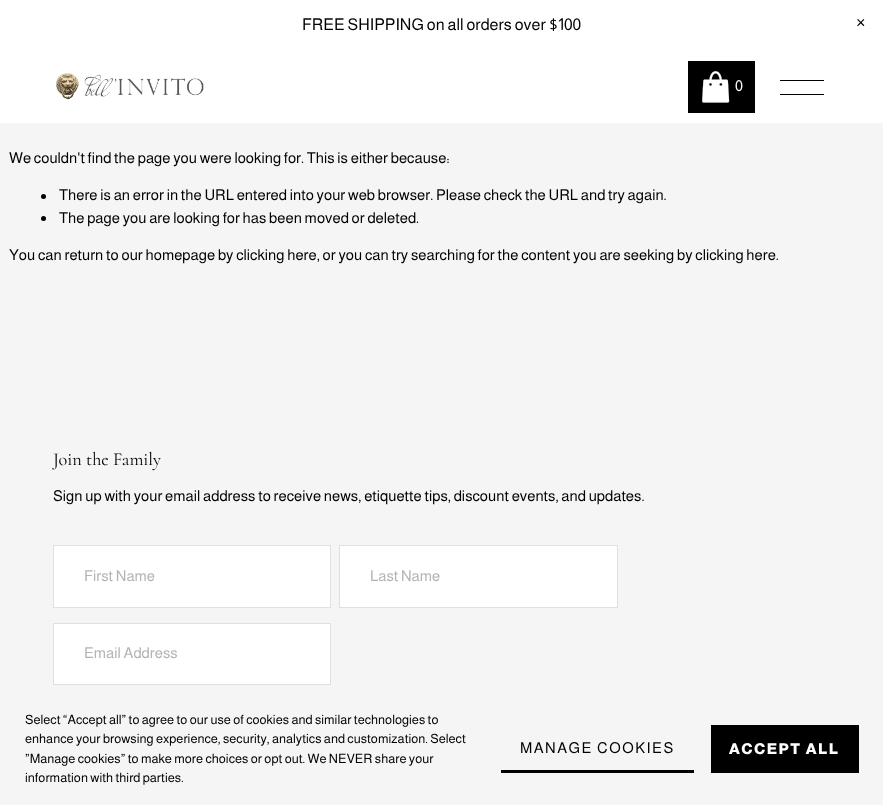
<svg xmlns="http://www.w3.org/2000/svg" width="883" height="805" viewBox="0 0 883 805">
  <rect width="100%" height="100%" fill="#f5f5f5"/>
  <rect x="0" y="0" width="883" height="123" fill="#ffffff"/>
  <text x="302" y="30" font-family="Almarai" font-size="16.25" fill="#000000">FREE SHIPPING on all orders over $100</text>
  <text x="856" y="28" font-family="Liberation Sans" font-size="16.25" fill="#000000">×</text>
  <image x="56" y="73" width="148" height="27" href="img1.png"/>
  <rect x="688" y="61" width="67" height="52" fill="#000000"/>
  <image x="702" y="71" width="28" height="32" href="img2.png"/>
  <text x="735" y="91" font-family="Almarai" font-size="15" fill="#ffffff">0</text>
  <rect x="780" y="80" width="44" height="1" fill="#000000"/>
  <rect x="780" y="94" width="44" height="1" fill="#000000"/>
  <text x="9" y="163" font-family="Almarai" font-size="15" fill="#000000">We couldn't find the page you were looking for. This is either because:</text>
  <circle cx="43.5" cy="196.5" r="2.5" fill="#000000"/>
  <text x="59" y="200" font-family="Almarai" font-size="15" fill="#000000">There is an error in the URL entered into your web browser. Please check the URL and try again.</text>
  <circle cx="43.5" cy="218.5" r="2.5" fill="#000000"/>
  <text x="59" y="223" font-family="Almarai" font-size="15" fill="#000000">The page you are looking for has been moved or deleted.</text>
  <text x="9" y="260" font-family="Almarai" font-size="15" fill="#000000">You can return to our homepage by clicking here, or you can try searching for the content you are seeking by clicking here.</text>
  <text x="53" y="465" font-family="Cormorant" font-size="18.25" fill="#000000">Join the Family</text>
  <text x="53" y="501" font-family="Almarai" font-size="15" fill="#000000">Sign up with your email address to receive news, etiquette tips, discount events, and updates.</text>
  <rect x="53.5" y="545.5" width="277" height="62" fill="#ffffff" stroke="#e0e0e0"/>
  <text x="84" y="581" font-family="Almarai" font-size="15" fill="#b3b3b3">First Name</text>
  <rect x="339.5" y="545.5" width="278" height="62" fill="#ffffff" stroke="#e0e0e0"/>
  <text x="370" y="581" font-family="Almarai" font-size="15" fill="#b3b3b3">Last Name</text>
  <rect x="53.5" y="623.5" width="277" height="61" fill="#ffffff" stroke="#e0e0e0"/>
  <text x="84" y="658" font-family="Almarai" font-size="15" fill="#b3b3b3">Email Address</text>
  <text x="25" y="724" font-family="Almarai" font-size="12.9" fill="#000000">Select “Accept all” to agree to our use of cookies and similar technologies to</text>
  <text x="25" y="743" font-family="Almarai" font-size="12.9" fill="#000000">enhance your browsing experience, security, analytics and customization. Select</text>
  <text x="25" y="763" font-family="Almarai" font-size="12.9" fill="#000000">”Manage cookies” to make more choices or opt out. We NEVER share your</text>
  <text x="25" y="782" font-family="Almarai" font-size="12.9" fill="#000000">information with third parties.</text>
  <rect x="501" y="770" width="193" height="3" fill="#000000"/>
  <text x="520" y="753" font-family="Almarai" font-size="15" letter-spacing="1.5" fill="#000000">MANAGE COOKIES</text>
  <rect x="711" y="725" width="148" height="48" fill="#000000"/>
  <text x="729" y="754" font-family="Almarai" font-size="15" font-weight="800" letter-spacing="1.5" fill="#ffffff">ACCEPT ALL</text>
</svg>
